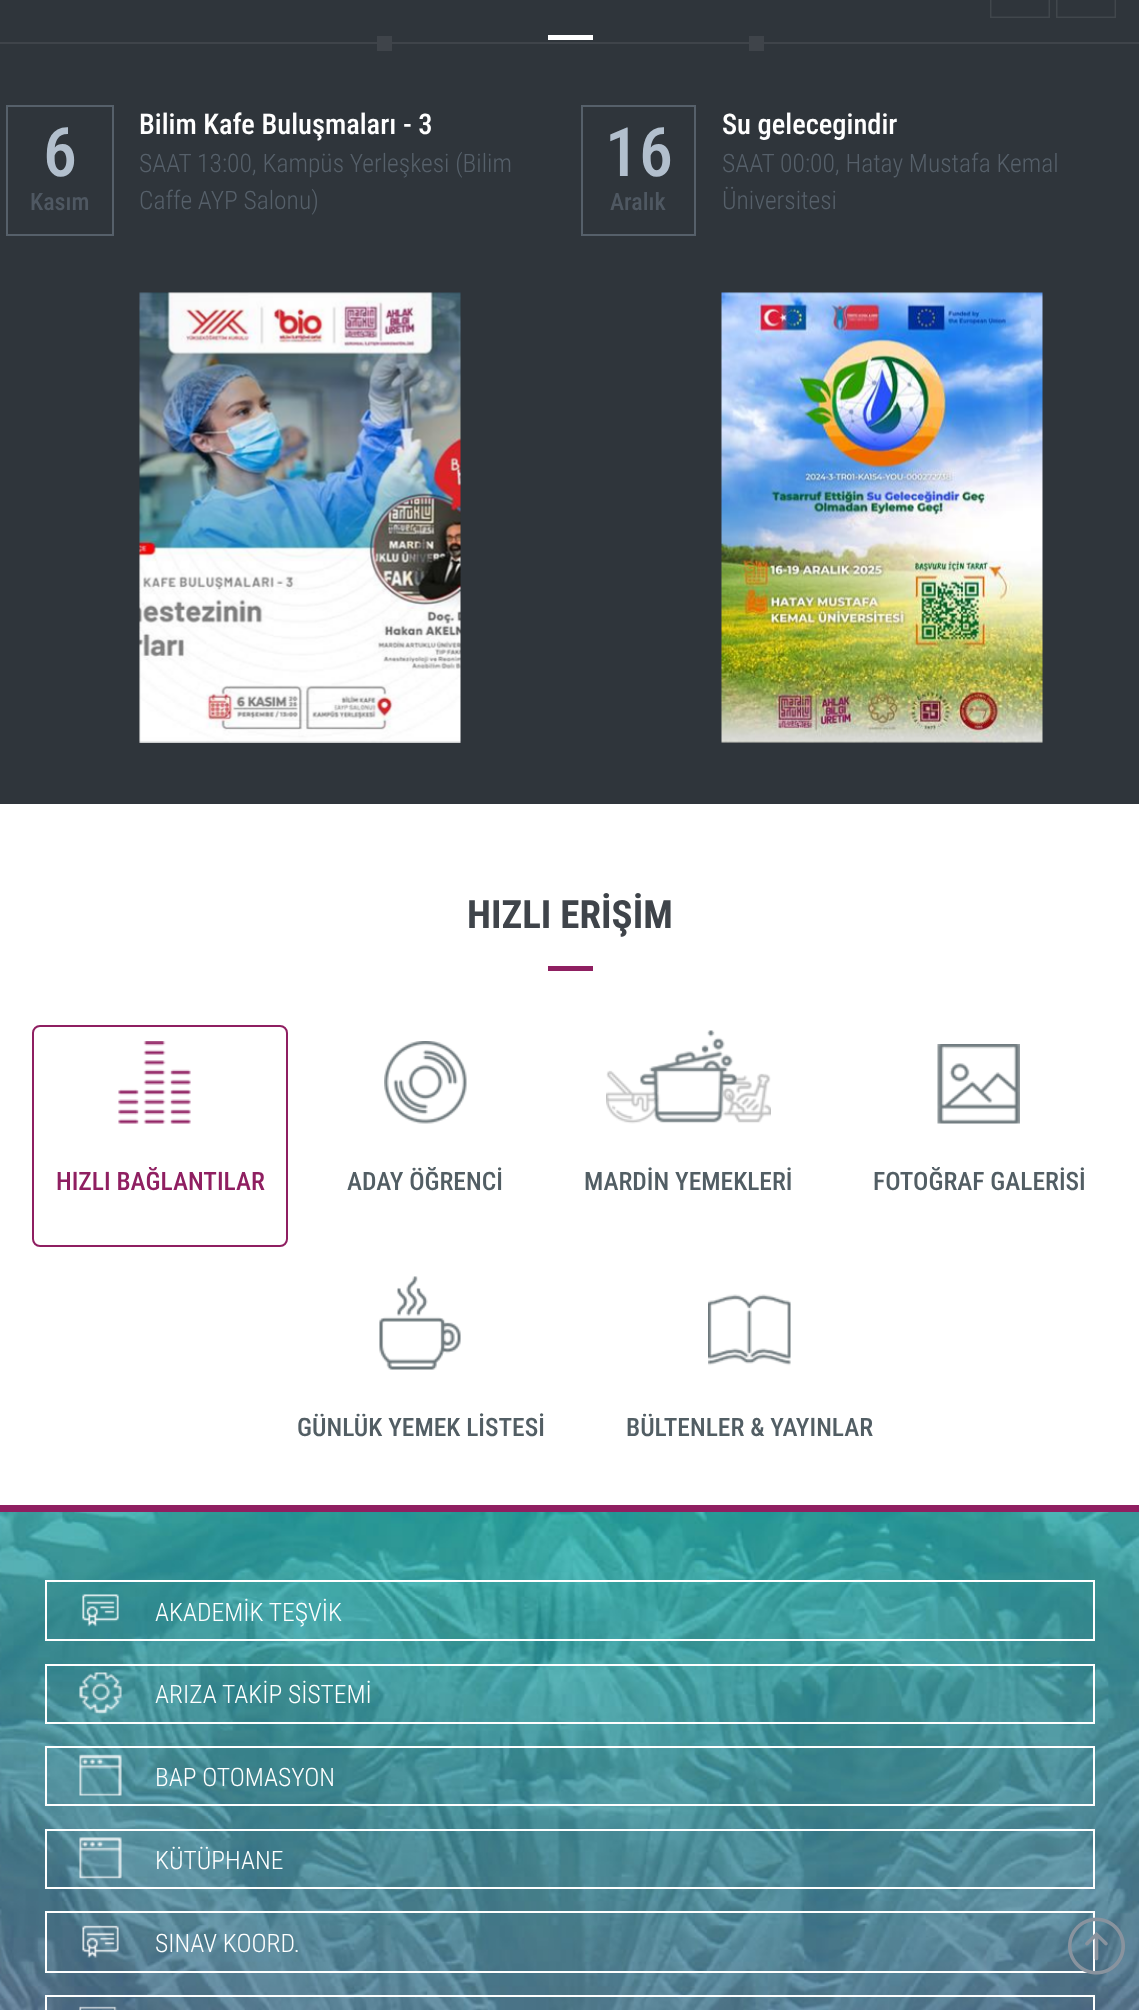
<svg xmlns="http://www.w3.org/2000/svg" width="1139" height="2010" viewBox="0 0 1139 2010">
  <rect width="100%" height="100%" fill="#ffffff"/>
  <rect x="0" y="0" width="1139" height="804" fill="#2f353b"/>
  <rect x="0" y="42" width="1139" height="2" fill="#3f444a"/>
  <rect x="377" y="36" width="15" height="15" fill="#3f444a"/>
  <rect x="749" y="36" width="15" height="15" fill="#3f444a"/>
  <image x="990" y="0" width="60" height="18" href="img1.png"/>
  <image x="1056" y="0" width="60" height="18" href="img2.png"/>
  <rect x="548" y="35" width="45" height="5" fill="#ffffff"/>
  <rect x="7" y="106" width="106" height="129" fill="none" stroke="#56606a" stroke-width="2"/>
  <text x="43" y="176" font-family="Roboto Condensed" font-size="68" font-weight="500" fill="#b2bfcd">6</text>
  <text x="30" y="210" font-family="Roboto Condensed" font-size="24" font-weight="500" fill="#4f5862">Kasım</text>
  <text x="139" y="134" font-family="Roboto Condensed" font-size="28.5" font-weight="500" fill="#ffffff">Bilim Kafe Buluşmaları - 3</text>
  <text x="139" y="172" font-family="Roboto Condensed" font-size="25.5" font-weight="300" fill="#56606a">SAAT 13:00, Kampüs Yerleşkesi (Bilim</text>
  <text x="139" y="209" font-family="Roboto Condensed" font-size="25.5" font-weight="300" fill="#56606a">Caffe AYP Salonu)</text>
  <image x="139" y="292" width="322" height="451" href="img3.png"/>
  <rect x="582" y="106" width="113" height="129" fill="none" stroke="#56606a" stroke-width="2"/>
  <text x="605" y="176" font-family="Roboto Condensed" font-size="68" font-weight="500" fill="#b2bfcd">16</text>
  <text x="610" y="210" font-family="Roboto Condensed" font-size="24" font-weight="500" fill="#4f5862">Aralık</text>
  <text x="722" y="134" font-family="Roboto Condensed" font-size="28.5" font-weight="500" fill="#ffffff">Su gelecegindir</text>
  <text x="722" y="172" font-family="Roboto Condensed" font-size="25.5" font-weight="300" fill="#56606a">SAAT 00:00, Hatay Mustafa Kemal</text>
  <text x="722" y="209" font-family="Roboto Condensed" font-size="25.5" font-weight="300" fill="#56606a">Üniversitesi</text>
  <image x="721" y="292" width="322" height="451" href="img4.png"/>
  <text x="467" y="928" font-family="Roboto Condensed" font-size="39" font-weight="bold" fill="#3f444a">HIZLI ERİŞİM</text>
  <rect x="548" y="966" width="45" height="5" fill="#8f1f61"/>
  <rect x="33" y="1026" width="254" height="220" rx="7" fill="none" stroke="#8f1f61" stroke-width="2"/>
  <image x="118" y="1041" width="73" height="83" href="img5.png"/>
  <text x="56" y="1190" font-family="Roboto Condensed" font-size="25.5" font-weight="500" fill="#8f1f61">HIZLI BAĞLANTILAR</text>
  <image x="384" y="1041" width="83" height="83" href="img6.png"/>
  <text x="347" y="1190" font-family="Roboto Condensed" font-size="25.5" font-weight="500" fill="#525e64">ADAY ÖĞRENCİ</text>
  <image x="606" y="1030" width="165" height="94" href="img7.png"/>
  <text x="584" y="1190" font-family="Roboto Condensed" font-size="25.5" font-weight="500" fill="#525e64">MARDİN YEMEKLERİ</text>
  <image x="937" y="1044" width="83" height="80" href="img8.png"/>
  <text x="873" y="1190" font-family="Roboto Condensed" font-size="25.5" font-weight="500" fill="#525e64">FOTOĞRAF GALERİSİ</text>
  <image x="379" y="1276" width="82" height="94" href="img9.png"/>
  <text x="297" y="1436" font-family="Roboto Condensed" font-size="25.5" font-weight="500" fill="#525e64">GÜNLÜK YEMEK LİSTESİ</text>
  <image x="708" y="1294" width="83" height="72" href="img10.png"/>
  <text x="626" y="1436" font-family="Roboto Condensed" font-size="25.5" font-weight="500" fill="#525e64">BÜLTENLER &amp; YAYINLAR</text>
  <rect x="0" y="1505" width="1139" height="7" fill="#8f1f61"/>
  <image x="0" y="1512" width="1139" height="498" href="img11.png"/>
  <rect x="46" y="1581" width="1048" height="59" fill="none" stroke="#ffffff" stroke-width="2"/>
  <image x="82" y="1594" width="37" height="33" href="img12.png"/>
  <text x="155" y="1621" font-family="Roboto Condensed" font-size="25.5" font-weight="300" fill="#ffffff">AKADEMİK TEŞVİK</text>
  <rect x="46" y="1665" width="1048" height="58" fill="none" stroke="#ffffff" stroke-width="2"/>
  <image x="79" y="1672" width="43" height="42" href="img13.png"/>
  <text x="155" y="1703" font-family="Roboto Condensed" font-size="25.5" font-weight="300" fill="#ffffff">ARIZA TAKİP SİSTEMİ</text>
  <rect x="46" y="1747" width="1048" height="58" fill="none" stroke="#ffffff" stroke-width="2"/>
  <image x="79" y="1754" width="43" height="42" href="img14.png"/>
  <text x="155" y="1786" font-family="Roboto Condensed" font-size="25.5" font-weight="300" fill="#ffffff">BAP OTOMASYON</text>
  <rect x="46" y="1830" width="1048" height="58" fill="none" stroke="#ffffff" stroke-width="2"/>
  <image x="79" y="1837" width="43" height="42" href="img15.png"/>
  <text x="155" y="1869" font-family="Roboto Condensed" font-size="25.5" font-weight="300" fill="#ffffff">KÜTÜPHANE</text>
  <rect x="46" y="1912" width="1048" height="60" fill="none" stroke="#ffffff" stroke-width="2"/>
  <image x="82" y="1925" width="37" height="33" href="img16.png"/>
  <text x="155" y="1952" font-family="Roboto Condensed" font-size="25.5" font-weight="300" fill="#ffffff">SINAV KOORD.</text>
  <rect x="46" y="1996" width="1048" height="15" fill="none" stroke="#ffffff" stroke-width="2"/>
  <image x="79" y="2006" width="39" height="4" href="img17.png"/>
  <image x="1068" y="1917" width="57" height="58" href="img18.png"/>
</svg>
